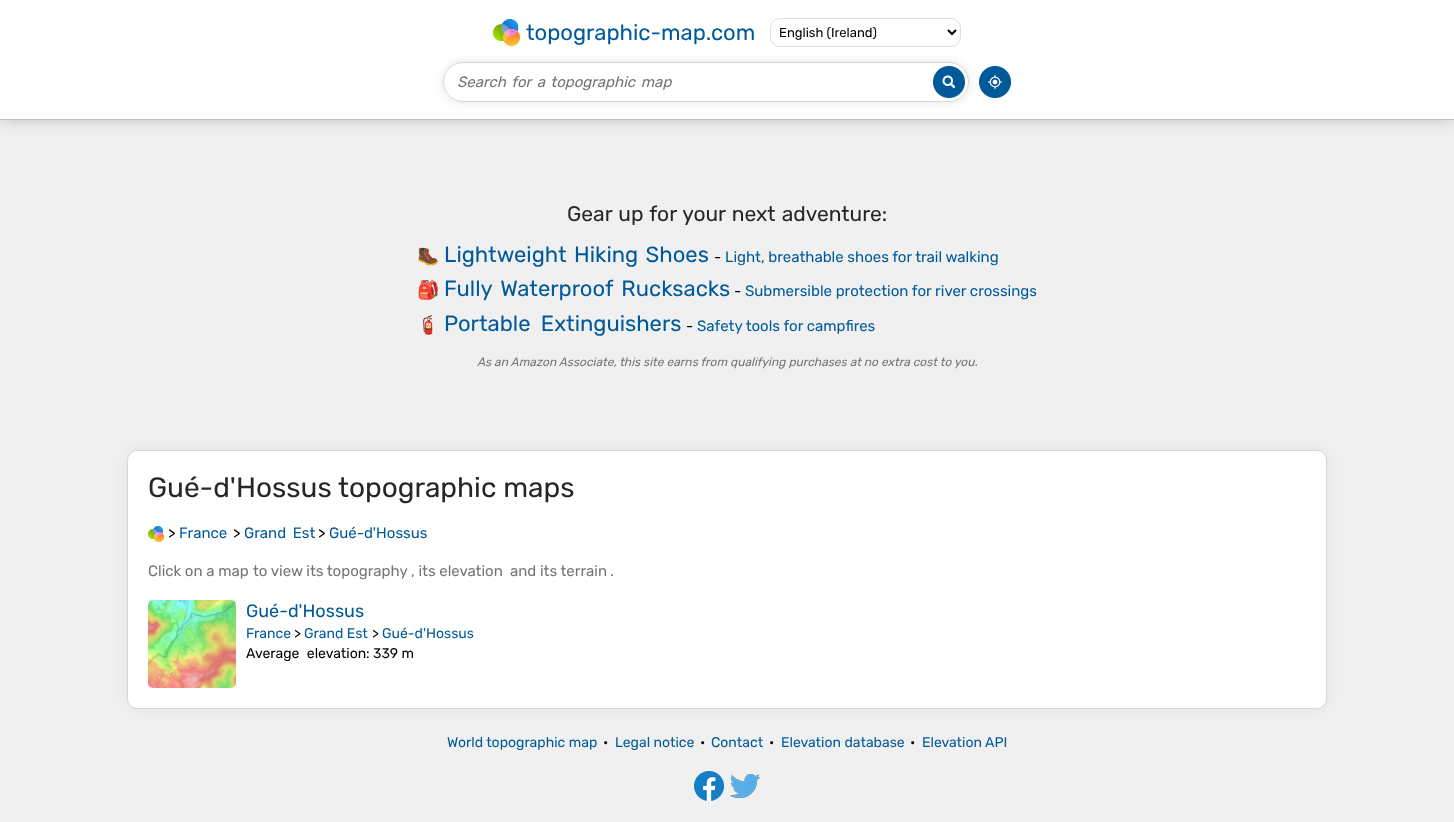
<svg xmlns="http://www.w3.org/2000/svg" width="1454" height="822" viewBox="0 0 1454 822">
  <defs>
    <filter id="blur1" x="-50%" y="-200%" width="200%" height="500%"><feGaussianBlur stdDeviation="7.5"/></filter>
    <clipPath id="clip1"><path d="M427 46H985V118H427ZM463 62H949C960 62 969 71 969 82C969 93 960 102 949 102H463C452 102 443 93 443 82C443 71 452 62 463 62Z" clip-rule="evenodd"/></clipPath>
    <filter id="blur2" x="-50%" y="-200%" width="200%" height="500%"><feGaussianBlur stdDeviation="5"/></filter>
  </defs>
  <rect width="100%" height="100%" fill="#f0f0f0"/>
  <rect x="0" y="0" width="1454" height="120" fill="#000000" fill-opacity="0.2" filter="url(#blur1)"/>
  <rect x="0" y="0" width="1454" height="119" fill="#ffffff"/>
  <rect x="0" y="119" width="1454" height="1" fill="#bfbfbf"/>
  <image x="493" y="19" width="27" height="27" href="img1.png"/>
  <text x="526" y="40" font-family="Rubik" font-size="22" fill="#005999">topographic-map.com</text>
  <rect x="770.5" y="18.5" width="190" height="28" rx="9.5" fill="none" stroke="#dedede"/>
  <path d="M948 30L952 34L956 30" fill="none" stroke="#000000" stroke-width="2"/>
  <text x="779" y="37" font-family="Rubik" font-size="13" fill="#000000">English (Ireland)</text>
  <g clip-path="url(#clip1)">
    <rect x="443" y="62" width="526" height="40" rx="20" fill="#000000" fill-opacity="0.1" filter="url(#blur2)"/>
  </g>
  <rect x="443.5" y="62.5" width="525" height="39" rx="19.5" fill="none" stroke="#d6d6d6"/>
  <text x="457" y="87" word-spacing="2" font-family="Rubik" font-size="15" font-style="italic" fill="#757575">Search for a topographic map</text>
  <image x="933" y="66" width="32" height="32" href="img2.png"/>
  <image x="979" y="66" width="32" height="32" href="img3.png"/>
  <text x="567" y="221" word-spacing="1" font-family="Rubik" font-size="21" fill="#262626">Gear up for your next adventure:</text>
  <text x="417" y="262" font-family="Noto Color Emoji" font-size="18" fill="#000000">🥾</text>
  <text x="444" y="262" word-spacing="2" font-family="Rubik" font-size="22" fill="#005999">Lightweight Hiking Shoes</text>
  <text x="714" y="262" font-family="Rubik" font-size="15" fill="#000000">-</text>
  <text x="725" y="262" font-family="Rubik" font-size="15" fill="#005999">Light, breathable shoes for trail walking</text>
  <text x="417" y="296" font-family="Noto Color Emoji" font-size="18" fill="#000000">🎒</text>
  <text x="444" y="296" word-spacing="3" font-family="Rubik" font-size="22" fill="#005999">Fully Waterproof Rucksacks</text>
  <text x="734" y="296" font-family="Rubik" font-size="15" fill="#000000">-</text>
  <text x="745" y="296" font-family="Rubik" font-size="15" fill="#005999">Submersible protection for river crossings</text>
  <text x="417" y="331" font-family="Noto Color Emoji" font-size="18" fill="#000000">🧯</text>
  <text x="444" y="331" word-spacing="5" font-family="Rubik" font-size="22" fill="#005999">Portable Extinguishers</text>
  <text x="686" y="331" font-family="Rubik" font-size="15" fill="#000000">-</text>
  <text x="697" y="331" font-family="Rubik" font-size="15" fill="#005999">Safety tools for campfires</text>
  <text x="477" y="366" font-family="Rubik" font-size="12" font-style="italic" fill="#757575">As an Amazon Associate, this site earns from qualifying purchases at no extra cost to you.</text>
  <rect x="127" y="450" width="1200" height="259" rx="10" fill="#000000" fill-opacity="0.05" filter="url(#blur1)"/>
  <rect x="127.5" y="450.5" width="1199" height="258" rx="9.5" fill="#ffffff" stroke="#d6d6d6"/>
  <text x="148" y="497" font-family="Rubik" font-size="28" fill="#262626">Gué-d'Hossus</text>
  <text x="338" y="497" font-family="Rubik" font-size="28" fill="#262626">topographic maps</text>
  <image x="148" y="526" width="16" height="16" href="img4.png"/>
  <text x="168" y="538" font-family="Rubik" font-size="15" fill="#000000">&gt;</text>
  <text x="179" y="538" font-family="Rubik" font-size="15" fill="#005999">France</text>
  <text x="233" y="538" font-family="Rubik" font-size="15" fill="#000000">&gt;</text>
  <text x="244" y="538" word-spacing="3" font-family="Rubik" font-size="15" fill="#005999">Grand Est</text>
  <text x="318" y="538" font-family="Rubik" font-size="15" fill="#000000">&gt;</text>
  <text x="329" y="538" font-family="Rubik" font-size="15" fill="#005999">Gué-d'Hossus</text>
  <text x="148" y="576" font-family="Rubik" font-size="15" fill="#757575">Click on a map</text>
  <text x="253" y="576" font-family="Rubik" font-size="15" fill="#757575">to view its topography , its elevation</text>
  <text x="510" y="576" font-family="Rubik" font-size="15" fill="#757575">and its terrain</text>
  <text x="610" y="576" font-family="Rubik" font-size="15" fill="#757575">.</text>
  <image x="148" y="600" width="88" height="88" href="img5.png"/>
  <text x="246" y="617" font-family="Rubik" font-size="18" fill="#005999">Gué-d'Hossus</text>
  <text x="246" y="638" font-family="Rubik" font-size="14" fill="#005999">France</text>
  <text x="294" y="638" font-family="Rubik" font-size="14" fill="#000000">&gt;</text>
  <text x="304" y="638" font-family="Rubik" font-size="14" fill="#005999">Grand Est</text>
  <text x="372" y="638" font-family="Rubik" font-size="14" fill="#000000">&gt;</text>
  <text x="382" y="638" font-family="Rubik" font-size="14" fill="#005999">Gué-d'Hossus</text>
  <text x="246" y="658" word-spacing="4" font-family="Rubik" font-size="14" fill="#000000">Average elevation</text>
  <text x="366" y="658" font-family="Rubik" font-size="14" fill="#000000">: 339 m</text>
  <text x="447" y="747" font-family="Rubik" font-size="14" fill="#005999">World topographic map</text>
  <text x="603" y="747" font-family="Rubik" font-size="14" fill="#000000">•</text>
  <text x="615" y="747" font-family="Rubik" font-size="14" fill="#005999">Legal notice</text>
  <text x="700" y="747" font-family="Rubik" font-size="14" fill="#000000">•</text>
  <text x="711" y="747" font-family="Rubik" font-size="14" fill="#005999">Contact</text>
  <text x="769" y="747" font-family="Rubik" font-size="14" fill="#000000">•</text>
  <text x="781" y="747" font-family="Rubik" font-size="14" fill="#005999">Elevation database</text>
  <text x="910" y="747" font-family="Rubik" font-size="14" fill="#000000">•</text>
  <text x="922" y="747" font-family="Rubik" font-size="14" fill="#005999">Elevation API</text>
  <image x="694" y="771" width="30" height="30" href="img6.png"/>
  <image x="730" y="774" width="30" height="24" href="img7.png"/>
</svg>
